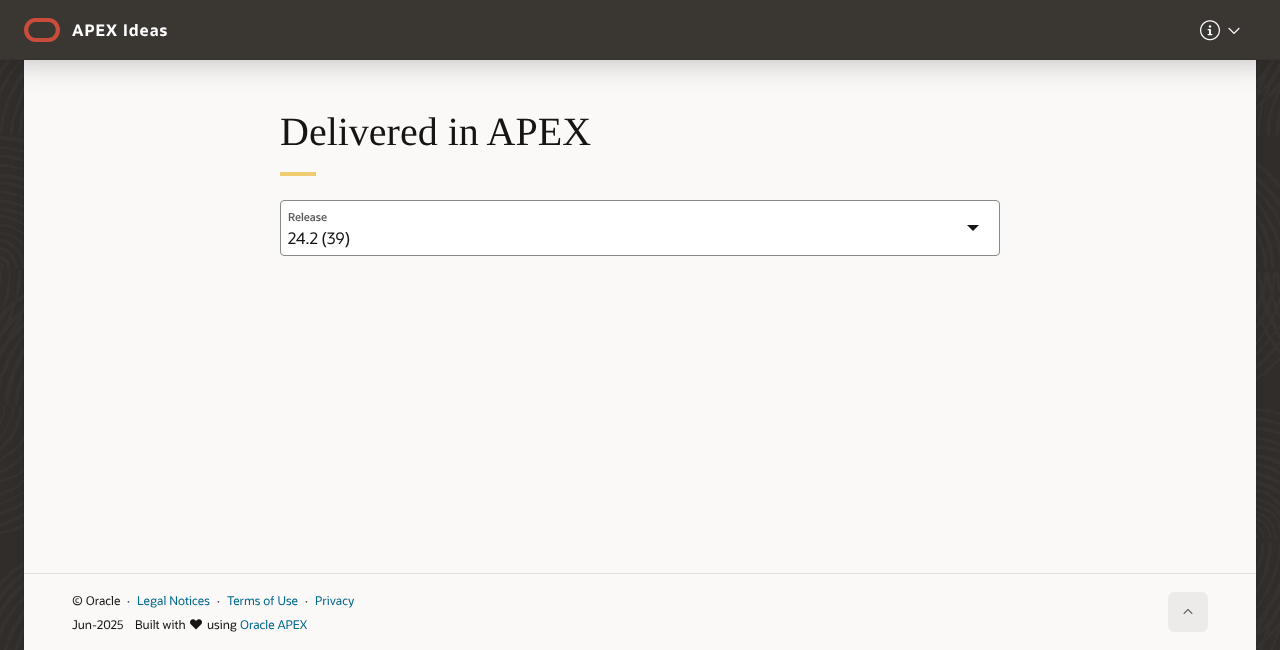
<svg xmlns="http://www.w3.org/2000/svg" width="1280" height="650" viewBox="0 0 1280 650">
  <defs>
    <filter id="blur1" x="-50%" y="-200%" width="200%" height="500%"><feGaussianBlur stdDeviation="12"/></filter>
    <filter id="blur2" x="-50%" y="-200%" width="200%" height="500%"><feGaussianBlur stdDeviation="16"/></filter>
  </defs>
  <rect width="100%" height="100%" fill="#312d2a"/>
  <image x="0" y="60" width="1280" height="590" href="img1.png"/>
  <rect x="23.5" y="59.5" width="1233" height="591" fill="none" stroke="#000000" stroke-opacity="0.05"/>
  <rect x="36" y="84" width="1208" height="566" fill="#000000" fill-opacity="0.3" filter="url(#blur1)"/>
  <rect x="24" y="60" width="1232" height="590" fill="#fbf9f8"/>
  <rect x="10" y="18" width="1260" height="40" fill="#000000" fill-opacity="0.3" filter="url(#blur2)"/>
  <rect x="0" y="0" width="1280" height="59" fill="#3a3632"/>
  <rect x="0" y="59" width="1280" height="1" fill="#36332f"/>
  <image x="24" y="18" width="36" height="24" href="img2.png"/>
  <text x="72" y="36" font-family="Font" font-size="16" font-weight="bold" letter-spacing="1" fill="#ffffff">APEX Ideas</text>
  <image x="1200" y="20" width="20" height="21" href="img3.png"/>
  <image x="1228" y="27" width="12" height="7" href="img4.png"/>
  <text x="280" y="145" font-family="Liberation Serif" font-size="40" fill="#161513">Delivered in APEX</text>
  <rect x="280" y="172" width="36" height="4" fill="#f0cc71"/>
  <rect x="280" y="200" width="720" height="56" rx="4" fill="#ffffff"/>
  <path d="M967 225L973 231L979 225Z" fill="#161513" fill-rule="evenodd"/>
  <rect x="280.5" y="200.5" width="719" height="55" rx="3.5" fill="none" stroke="#8a8a89"/>
  <text x="288" y="221" font-family="Font" font-size="11" font-weight="600" fill="#5c5b5a">Release</text>
  <text x="288" y="244" font-family="Font" font-size="16" fill="#161513">24.2 (39)</text>
  <rect x="24" y="573" width="1232" height="1" fill="#e4e2e1"/>
  <text x="72" y="605" font-family="Font" font-size="12" fill="#161513">© Oracle</text>
  <text x="127" y="605" font-family="Font" font-size="12" fill="#161513">·</text>
  <text x="137" y="605" font-family="Font" font-size="12" fill="#00688c">Legal Notices</text>
  <text x="217" y="605" font-family="Font" font-size="12" fill="#161513">·</text>
  <text x="227" y="605" font-family="Font" font-size="12" fill="#00688c">Terms of Use</text>
  <text x="305" y="605" font-family="Font" font-size="12" fill="#161513">·</text>
  <text x="315" y="605" font-family="Font" font-size="12" fill="#00688c">Privacy</text>
  <text x="72" y="629" font-family="Font" font-size="12" fill="#161513">Jun-2025</text>
  <text x="135" y="629" font-family="Font" font-size="12" fill="#161513">Built with</text>
  <image x="190" y="619" width="12" height="11" href="img5.png"/>
  <text x="207" y="629" font-family="Font" font-size="12" fill="#161513">using</text>
  <text x="240" y="629" font-family="Font" font-size="12" fill="#00688c">Oracle APEX</text>
  <rect x="1168" y="592" width="40" height="40" rx="6" fill="#edebea"/>
  <image x="1183" y="609" width="10" height="5" href="img6.png"/>
</svg>
